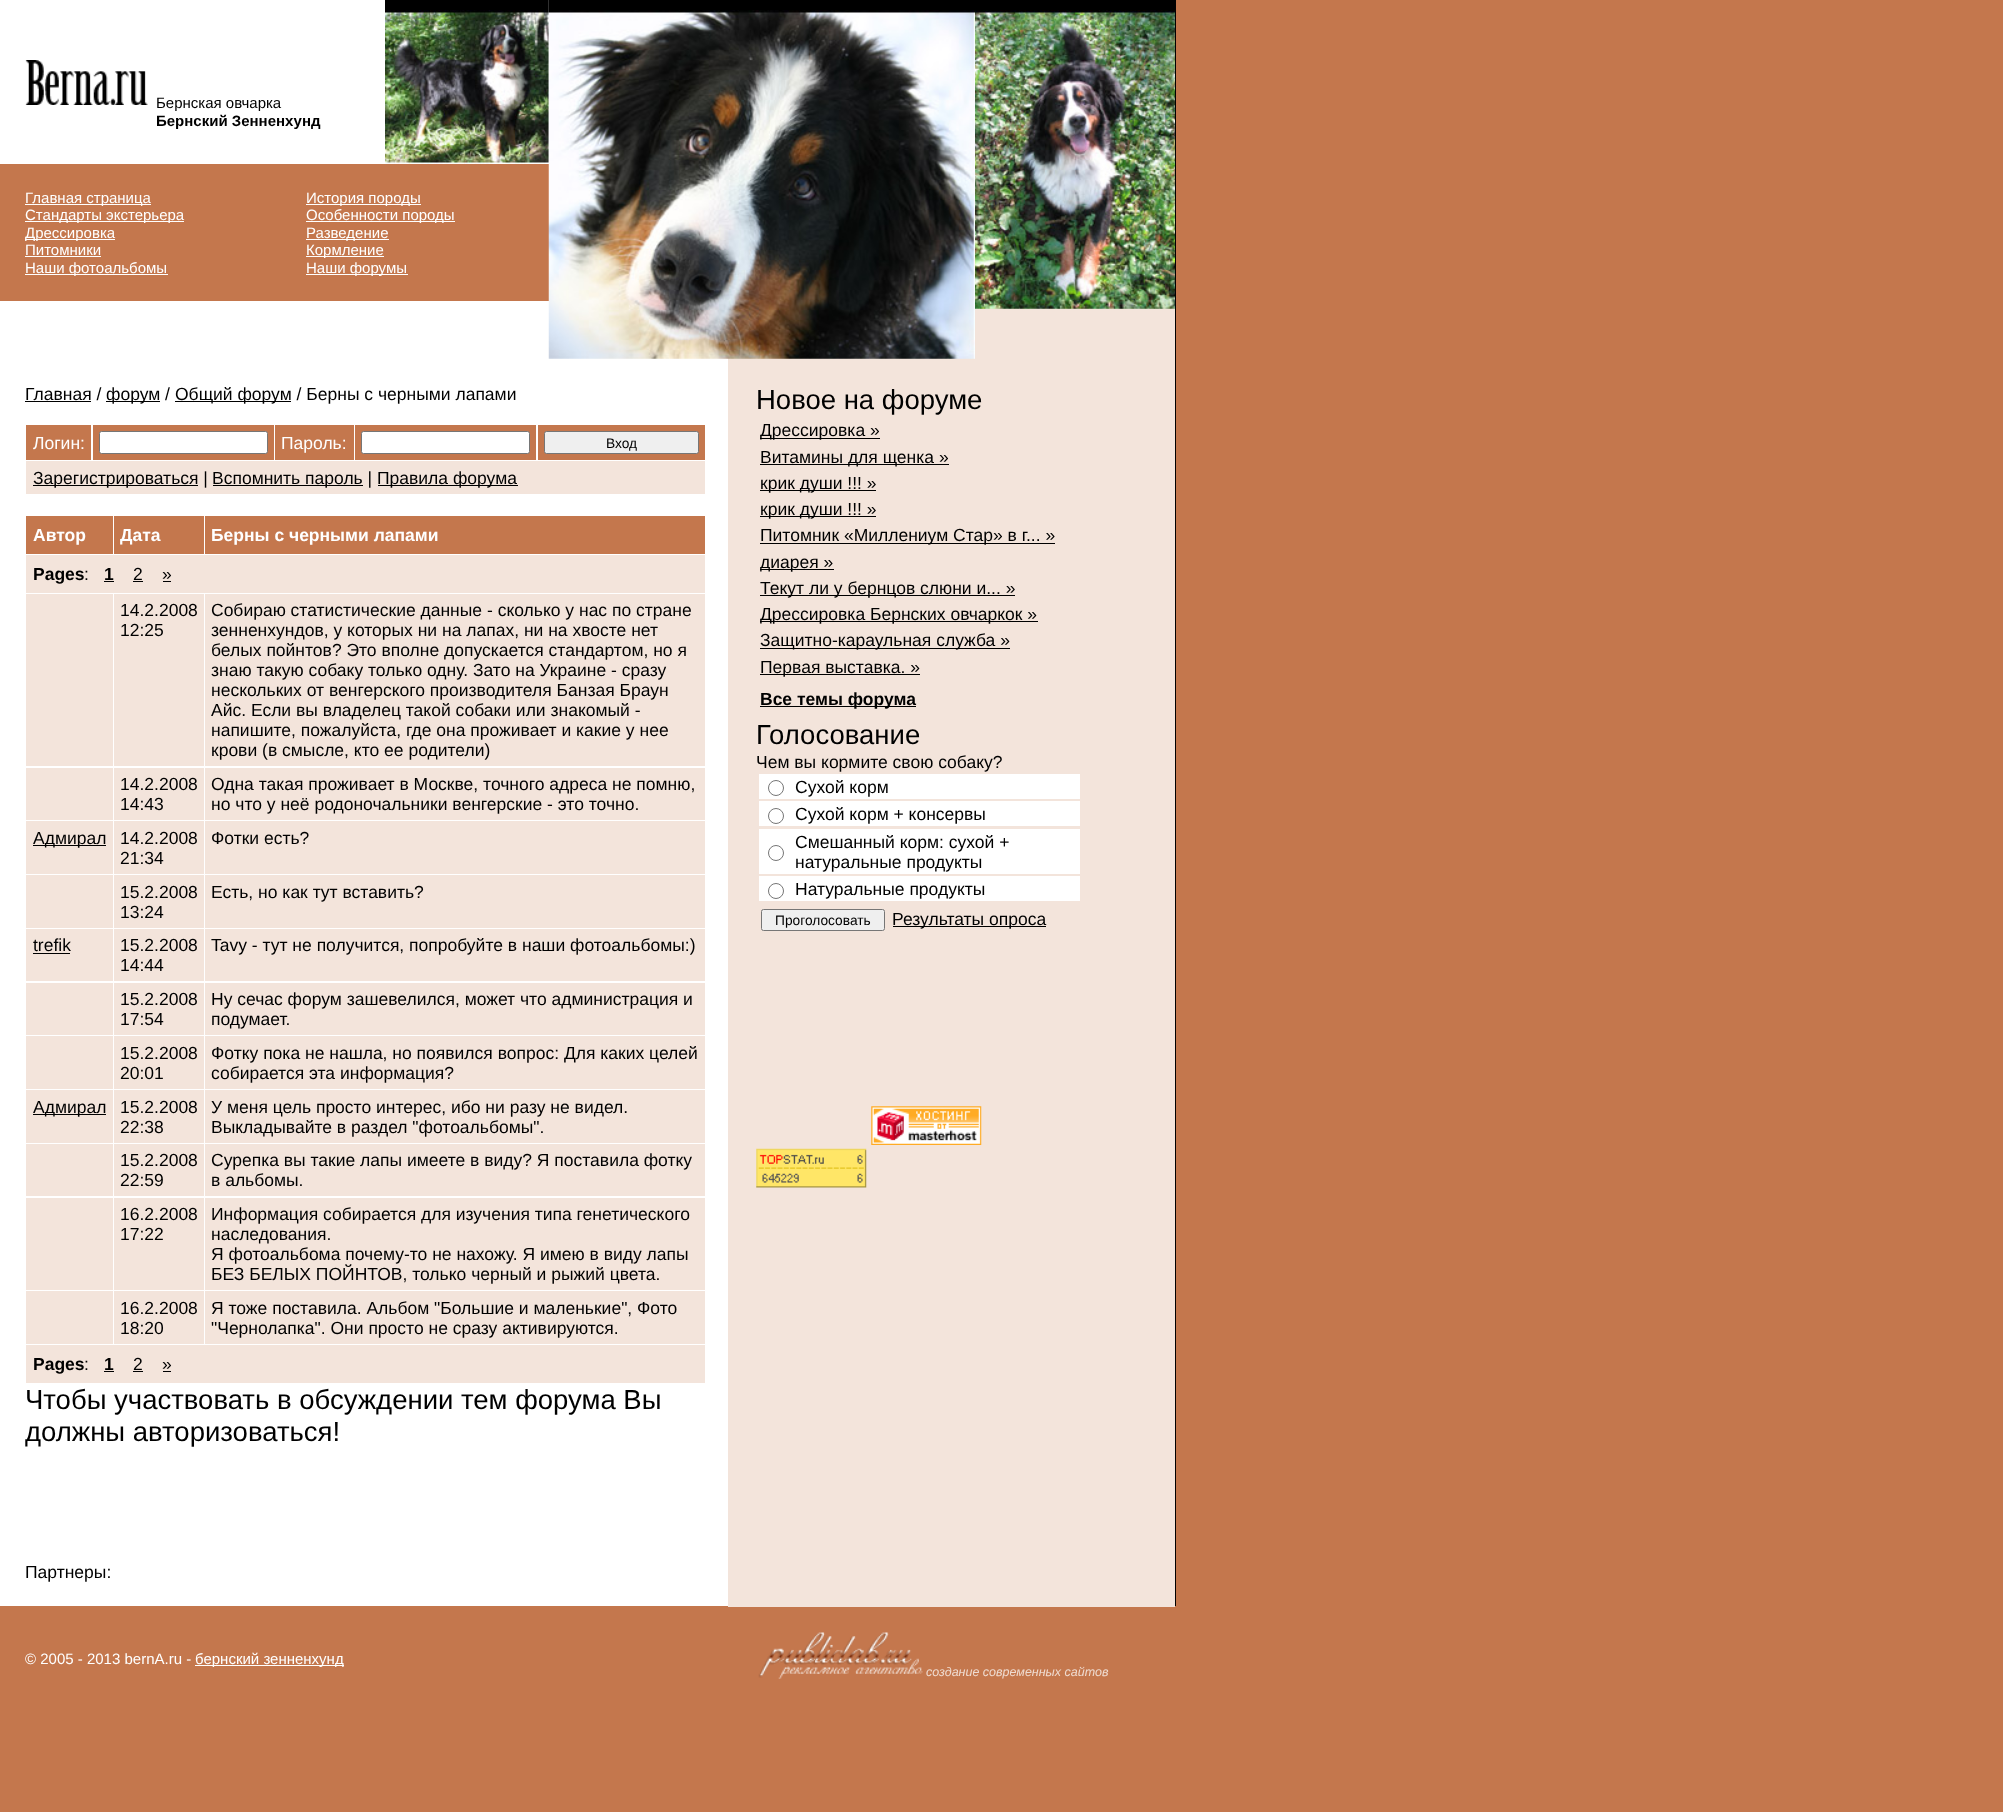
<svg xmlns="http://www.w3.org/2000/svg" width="2003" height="1812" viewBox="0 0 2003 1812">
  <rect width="100%" height="100%" fill="#c4774d"/>
  <rect x="0" y="0" width="728" height="1606" fill="#ffffff"/>
  <rect x="728" y="308" width="447" height="1299" fill="#f3e4db"/>
  <rect x="1175" y="0" width="1" height="1606" fill="#000000"/>
  <image x="25" y="60" width="123" height="45" href="img1.png"/>
  <image x="385" y="0" width="164" height="164" href="img2.png"/>
  <text x="156" y="108" font-family="Liberation Sans" font-size="15" fill="#000000">Бернская овчарка</text>
  <text x="156" y="126" font-family="Liberation Sans" font-size="15" font-weight="bold" fill="#000000">Бернский Зенненхунд</text>
  <rect x="0" y="164" width="549" height="137" fill="#c4774d"/>
  <rect x="25" y="204" width="126" height="1" fill="#ffffff"/>
  <text x="25" y="203" font-family="Liberation Sans" font-size="15" fill="#ffffff">Главная страница</text>
  <rect x="25" y="221" width="159" height="1" fill="#ffffff"/>
  <text x="25" y="220" font-family="Liberation Sans" font-size="15" fill="#ffffff">Стандарты экстерьера</text>
  <rect x="25" y="239" width="90" height="1" fill="#ffffff"/>
  <text x="25" y="238" font-family="Liberation Sans" font-size="15" fill="#ffffff">Дрессировка</text>
  <text x="25" y="255" font-family="Liberation Sans" font-size="15" fill="#ffffff">Питомники</text>
  <rect x="25" y="256" width="76" height="1" fill="#ffffff"/>
  <rect x="25" y="274" width="143" height="1" fill="#ffffff"/>
  <text x="25" y="273" font-family="Liberation Sans" font-size="15" fill="#ffffff">Наши фотоальбомы</text>
  <rect x="306" y="204" width="115" height="1" fill="#ffffff"/>
  <text x="306" y="203" font-family="Liberation Sans" font-size="15" fill="#ffffff">История породы</text>
  <rect x="306" y="221" width="149" height="1" fill="#ffffff"/>
  <text x="306" y="220" font-family="Liberation Sans" font-size="15" fill="#ffffff">Особенности породы</text>
  <rect x="306" y="239" width="83" height="1" fill="#ffffff"/>
  <text x="306" y="238" font-family="Liberation Sans" font-size="15" fill="#ffffff">Разведение</text>
  <rect x="306" y="256" width="78" height="1" fill="#ffffff"/>
  <text x="306" y="255" font-family="Liberation Sans" font-size="15" fill="#ffffff">Кормление</text>
  <rect x="306" y="274" width="102" height="1" fill="#ffffff"/>
  <text x="306" y="273" font-family="Liberation Sans" font-size="15" fill="#ffffff">Наши форумы</text>
  <image x="548" y="0" width="427" height="359" href="img3.png"/>
  <image x="975" y="0" width="200" height="309" href="img4.png"/>
  <text x="25" y="400" font-family="Liberation Sans" font-size="17.5" fill="#000000">Главная /</text>
  <rect x="25" y="401" width="66" height="1" fill="#000000"/>
  <rect x="106" y="401" width="54" height="1" fill="#000000"/>
  <text x="106" y="400" font-family="Liberation Sans" font-size="17.5" fill="#000000">форум /</text>
  <rect x="175" y="401" width="116" height="1" fill="#000000"/>
  <text x="175" y="400" font-family="Liberation Sans" font-size="17.5" fill="#000000">Общий форум / Берны с черными лапами</text>
  <rect x="26" y="425" width="65" height="35" fill="#c4774d"/>
  <text x="33" y="449" font-family="Liberation Sans" font-size="17.5" fill="#ffffff">Логин:</text>
  <rect x="93" y="425" width="181" height="35" fill="#c4774d"/>
  <rect x="99.5" y="431.5" width="168" height="22" rx="2" fill="#ffffff" stroke="#767676"/>
  <rect x="275" y="425" width="79" height="35" fill="#c4774d"/>
  <text x="281" y="449" font-family="Liberation Sans" font-size="17.5" fill="#ffffff">Пароль:</text>
  <rect x="355" y="425" width="181" height="35" fill="#c4774d"/>
  <rect x="361.5" y="431.5" width="168" height="22" rx="2" fill="#ffffff" stroke="#767676"/>
  <rect x="538" y="425" width="167" height="35" fill="#c4774d"/>
  <rect x="544.5" y="431.5" width="154" height="22" rx="2" fill="#efefef" stroke="#767676"/>
  <text x="606" y="448" font-family="Liberation Sans" font-size="13.75" fill="#000000">Вход</text>
  <rect x="26" y="461" width="679" height="33" fill="#f3e4db"/>
  <rect x="33" y="485" width="165" height="1" fill="#000000"/>
  <text x="33" y="484" font-family="Liberation Sans" font-size="17.5" fill="#000000">Зарегистрироваться |</text>
  <rect x="213" y="485" width="150" height="1" fill="#000000"/>
  <text x="212" y="484" font-family="Liberation Sans" font-size="17.5" fill="#000000">Вспомнить пароль |</text>
  <rect x="378" y="485" width="140" height="1" fill="#000000"/>
  <text x="377" y="484" font-family="Liberation Sans" font-size="17.5" fill="#000000">Правила форума</text>
  <rect x="26" y="516" width="87" height="38" fill="#c4774d"/>
  <text x="33" y="541" font-family="Liberation Sans" font-size="17.5" font-weight="bold" fill="#ffffff">Автор</text>
  <rect x="114" y="516" width="90" height="38" fill="#c4774d"/>
  <text x="120" y="541" font-family="Liberation Sans" font-size="17.5" font-weight="bold" fill="#ffffff">Дата</text>
  <rect x="205" y="516" width="500" height="38" fill="#c4774d"/>
  <text x="211" y="541" font-family="Liberation Sans" font-size="17.5" font-weight="bold" fill="#ffffff">Берны с черными лапами</text>
  <rect x="26" y="555" width="679" height="38" fill="#f3e4db"/>
  <text x="33" y="580" font-family="Liberation Sans" font-size="17.5" font-weight="bold" fill="#000000">Pages</text>
  <text x="84" y="580" font-family="Liberation Sans" font-size="17.5" fill="#000000">:</text>
  <text x="104" y="580" font-family="Liberation Sans" font-size="17.5" font-weight="bold" fill="#000000">1</text>
  <rect x="104" y="581" width="10" height="1" fill="#000000"/>
  <text x="133" y="580" font-family="Liberation Sans" font-size="17.5" fill="#000000">2</text>
  <rect x="133" y="581" width="10" height="1" fill="#000000"/>
  <text x="162" y="580" font-family="Liberation Sans" font-size="17.5" fill="#000000">»</text>
  <rect x="163" y="581" width="8" height="1" fill="#000000"/>
  <rect x="26" y="594" width="87" height="172" fill="#f3e4db"/>
  <rect x="114" y="594" width="90" height="172" fill="#f3e4db"/>
  <text x="120" y="616" font-family="Liberation Sans" font-size="17.5" fill="#000000">14.2.2008</text>
  <text x="120" y="636" font-family="Liberation Sans" font-size="17.5" fill="#000000">12:25</text>
  <rect x="205" y="594" width="500" height="172" fill="#f3e4db"/>
  <text x="211" y="616" font-family="Liberation Sans" font-size="17.5" fill="#000000">Собираю статистические данные - сколько у нас по стране</text>
  <text x="211" y="636" font-family="Liberation Sans" font-size="17.5" fill="#000000">зенненхундов, у которых ни на лапах, ни на хвосте нет</text>
  <text x="211" y="656" font-family="Liberation Sans" font-size="17.5" fill="#000000">белых пойнтов? Это вполне допускается стандартом, но я</text>
  <text x="211" y="676" font-family="Liberation Sans" font-size="17.5" fill="#000000">знаю такую собаку только одну. Зато на Украине - сразу</text>
  <text x="211" y="696" font-family="Liberation Sans" font-size="17.5" fill="#000000">нескольких от венгерского производителя Банзая Браун</text>
  <text x="211" y="716" font-family="Liberation Sans" font-size="17.5" fill="#000000">Айс. Если вы владелец такой собаки или знакомый -</text>
  <text x="211" y="736" font-family="Liberation Sans" font-size="17.5" fill="#000000">напишите, пожалуйста, где она проживает и какие у нее</text>
  <text x="211" y="756" font-family="Liberation Sans" font-size="17.5" fill="#000000">крови (в смысле, кто ее родители)</text>
  <rect x="26" y="768" width="87" height="52" fill="#f3e4db"/>
  <rect x="114" y="768" width="90" height="52" fill="#f3e4db"/>
  <text x="120" y="790" font-family="Liberation Sans" font-size="17.5" fill="#000000">14.2.2008</text>
  <text x="120" y="810" font-family="Liberation Sans" font-size="17.5" fill="#000000">14:43</text>
  <rect x="205" y="768" width="500" height="52" fill="#f3e4db"/>
  <text x="211" y="790" font-family="Liberation Sans" font-size="17.5" fill="#000000">Одна такая проживает в Москве, точного адреса не помню,</text>
  <text x="211" y="810" font-family="Liberation Sans" font-size="17.5" fill="#000000">но что у неё родоночальники венгерские - это точно.</text>
  <rect x="26" y="821" width="87" height="53" fill="#f3e4db"/>
  <rect x="33" y="845" width="73" height="1" fill="#000000"/>
  <text x="33" y="844" font-family="Liberation Sans" font-size="17.5" fill="#000000">Адмирал</text>
  <rect x="114" y="821" width="90" height="53" fill="#f3e4db"/>
  <text x="120" y="844" font-family="Liberation Sans" font-size="17.5" fill="#000000">14.2.2008</text>
  <text x="120" y="864" font-family="Liberation Sans" font-size="17.5" fill="#000000">21:34</text>
  <rect x="205" y="821" width="500" height="53" fill="#f3e4db"/>
  <text x="211" y="844" font-family="Liberation Sans" font-size="17.5" fill="#000000">Фотки есть?</text>
  <rect x="26" y="875" width="87" height="53" fill="#f3e4db"/>
  <rect x="114" y="875" width="90" height="53" fill="#f3e4db"/>
  <text x="120" y="898" font-family="Liberation Sans" font-size="17.5" fill="#000000">15.2.2008</text>
  <text x="120" y="918" font-family="Liberation Sans" font-size="17.5" fill="#000000">13:24</text>
  <rect x="205" y="875" width="500" height="53" fill="#f3e4db"/>
  <text x="211" y="898" font-family="Liberation Sans" font-size="17.5" fill="#000000">Есть, но как тут вставить?</text>
  <rect x="26" y="929" width="87" height="52" fill="#f3e4db"/>
  <text x="33" y="951" font-family="Liberation Sans" font-size="17.5" fill="#000000">trefik</text>
  <rect x="33" y="953" width="37" height="1" fill="#000000"/>
  <rect x="114" y="929" width="90" height="52" fill="#f3e4db"/>
  <text x="120" y="951" font-family="Liberation Sans" font-size="17.5" fill="#000000">15.2.2008</text>
  <text x="120" y="971" font-family="Liberation Sans" font-size="17.5" fill="#000000">14:44</text>
  <rect x="205" y="929" width="500" height="52" fill="#f3e4db"/>
  <text x="211" y="951" font-family="Liberation Sans" font-size="17.5" fill="#000000">Tavy - тут не получится, попробуйте в наши фотоальбомы:)</text>
  <rect x="26" y="983" width="87" height="52" fill="#f3e4db"/>
  <rect x="114" y="983" width="90" height="52" fill="#f3e4db"/>
  <text x="120" y="1005" font-family="Liberation Sans" font-size="17.5" fill="#000000">15.2.2008</text>
  <text x="120" y="1025" font-family="Liberation Sans" font-size="17.5" fill="#000000">17:54</text>
  <rect x="205" y="983" width="500" height="52" fill="#f3e4db"/>
  <text x="211" y="1005" font-family="Liberation Sans" font-size="17.5" fill="#000000">Ну сечас форум зашевелился, может что администрация и</text>
  <text x="211" y="1025" font-family="Liberation Sans" font-size="17.5" fill="#000000">подумает.</text>
  <rect x="26" y="1036" width="87" height="53" fill="#f3e4db"/>
  <rect x="114" y="1036" width="90" height="53" fill="#f3e4db"/>
  <text x="120" y="1059" font-family="Liberation Sans" font-size="17.5" fill="#000000">15.2.2008</text>
  <text x="120" y="1079" font-family="Liberation Sans" font-size="17.5" fill="#000000">20:01</text>
  <rect x="205" y="1036" width="500" height="53" fill="#f3e4db"/>
  <text x="211" y="1059" font-family="Liberation Sans" font-size="17.5" fill="#000000">Фотку пока не нашла, но появился вопрос: Для каких целей</text>
  <text x="211" y="1079" font-family="Liberation Sans" font-size="17.5" fill="#000000">собирается эта информация?</text>
  <rect x="26" y="1090" width="87" height="53" fill="#f3e4db"/>
  <rect x="33" y="1114" width="73" height="1" fill="#000000"/>
  <text x="33" y="1113" font-family="Liberation Sans" font-size="17.5" fill="#000000">Адмирал</text>
  <rect x="114" y="1090" width="90" height="53" fill="#f3e4db"/>
  <text x="120" y="1113" font-family="Liberation Sans" font-size="17.5" fill="#000000">15.2.2008</text>
  <text x="120" y="1133" font-family="Liberation Sans" font-size="17.5" fill="#000000">22:38</text>
  <rect x="205" y="1090" width="500" height="53" fill="#f3e4db"/>
  <text x="211" y="1113" font-family="Liberation Sans" font-size="17.5" fill="#000000">У меня цель просто интерес, ибо ни разу не видел.</text>
  <text x="211" y="1133" font-family="Liberation Sans" font-size="17.5" fill="#000000">Выкладывайте в раздел "фотоальбомы".</text>
  <rect x="26" y="1144" width="87" height="52" fill="#f3e4db"/>
  <rect x="114" y="1144" width="90" height="52" fill="#f3e4db"/>
  <text x="120" y="1166" font-family="Liberation Sans" font-size="17.5" fill="#000000">15.2.2008</text>
  <text x="120" y="1186" font-family="Liberation Sans" font-size="17.5" fill="#000000">22:59</text>
  <rect x="205" y="1144" width="500" height="52" fill="#f3e4db"/>
  <text x="211" y="1166" font-family="Liberation Sans" font-size="17.5" fill="#000000">Сурепка вы такие лапы имеете в виду? Я поставила фотку</text>
  <text x="211" y="1186" font-family="Liberation Sans" font-size="17.5" fill="#000000">в альбомы.</text>
  <rect x="26" y="1198" width="87" height="92" fill="#f3e4db"/>
  <rect x="114" y="1198" width="90" height="92" fill="#f3e4db"/>
  <text x="120" y="1220" font-family="Liberation Sans" font-size="17.5" fill="#000000">16.2.2008</text>
  <text x="120" y="1240" font-family="Liberation Sans" font-size="17.5" fill="#000000">17:22</text>
  <rect x="205" y="1198" width="500" height="92" fill="#f3e4db"/>
  <text x="211" y="1220" font-family="Liberation Sans" font-size="17.5" fill="#000000">Информация собирается для изучения типа генетического</text>
  <text x="211" y="1240" font-family="Liberation Sans" font-size="17.5" fill="#000000">наследования.</text>
  <text x="211" y="1260" font-family="Liberation Sans" font-size="17.5" fill="#000000">Я фотоальбома почему-то не нахожу. Я имею в виду лапы</text>
  <text x="211" y="1280" font-family="Liberation Sans" font-size="17.5" fill="#000000">БЕЗ БЕЛЫХ ПОЙНТОВ, только черный и рыжий цвета.</text>
  <rect x="26" y="1291" width="87" height="53" fill="#f3e4db"/>
  <rect x="114" y="1291" width="90" height="53" fill="#f3e4db"/>
  <text x="120" y="1314" font-family="Liberation Sans" font-size="17.5" fill="#000000">16.2.2008</text>
  <text x="120" y="1334" font-family="Liberation Sans" font-size="17.5" fill="#000000">18:20</text>
  <rect x="205" y="1291" width="500" height="53" fill="#f3e4db"/>
  <text x="211" y="1314" font-family="Liberation Sans" font-size="17.5" fill="#000000">Я тоже поставила. Альбом "Большие и маленькие", Фото</text>
  <text x="211" y="1334" font-family="Liberation Sans" font-size="17.5" fill="#000000">"Чернолапка". Они просто не сразу активируются.</text>
  <rect x="26" y="1345" width="679" height="38" fill="#f3e4db"/>
  <text x="33" y="1370" font-family="Liberation Sans" font-size="17.5" font-weight="bold" fill="#000000">Pages</text>
  <text x="84" y="1370" font-family="Liberation Sans" font-size="17.5" fill="#000000">:</text>
  <text x="104" y="1370" font-family="Liberation Sans" font-size="17.5" font-weight="bold" fill="#000000">1</text>
  <rect x="104" y="1371" width="10" height="1" fill="#000000"/>
  <text x="133" y="1370" font-family="Liberation Sans" font-size="17.5" fill="#000000">2</text>
  <rect x="133" y="1371" width="10" height="1" fill="#000000"/>
  <text x="162" y="1370" font-family="Liberation Sans" font-size="17.5" fill="#000000">»</text>
  <rect x="163" y="1371" width="8" height="1" fill="#000000"/>
  <text x="25" y="1409" font-family="Liberation Sans" font-size="27.5" fill="#000000">Чтобы участвовать в обсуждении тем форума Вы</text>
  <text x="25" y="1441" font-family="Liberation Sans" font-size="27.5" fill="#000000">должны авторизоваться!</text>
  <text x="25" y="1578" font-family="Liberation Sans" font-size="17.5" fill="#000000">Партнеры:</text>
  <text x="756" y="409" font-family="Liberation Sans" font-size="27.5" fill="#000000">Новое на форуме</text>
  <rect x="760" y="438" width="120" height="1" fill="#000000"/>
  <text x="760" y="436" font-family="Liberation Sans" font-size="17.5" fill="#000000">Дрессировка »</text>
  <rect x="760" y="464" width="189" height="1" fill="#000000"/>
  <text x="760" y="463" font-family="Liberation Sans" font-size="17.5" fill="#000000">Витамины для щенка »</text>
  <rect x="760" y="490" width="116" height="1" fill="#000000"/>
  <text x="760" y="489" font-family="Liberation Sans" font-size="17.5" fill="#000000">крик души !!! »</text>
  <rect x="760" y="516" width="116" height="1" fill="#000000"/>
  <text x="760" y="515" font-family="Liberation Sans" font-size="17.5" fill="#000000">крик души !!! »</text>
  <rect x="760" y="543" width="295" height="1" fill="#000000"/>
  <text x="760" y="541" font-family="Liberation Sans" font-size="17.5" fill="#000000">Питомник «Миллениум Стар» в г... »</text>
  <rect x="760" y="569" width="74" height="1" fill="#000000"/>
  <text x="760" y="568" font-family="Liberation Sans" font-size="17.5" fill="#000000">диарея »</text>
  <rect x="760" y="595" width="255" height="1" fill="#000000"/>
  <text x="760" y="594" font-family="Liberation Sans" font-size="17.5" fill="#000000">Текут ли у бернцов слюни и... »</text>
  <rect x="760" y="621" width="278" height="1" fill="#000000"/>
  <text x="760" y="620" font-family="Liberation Sans" font-size="17.5" fill="#000000">Дрессировка Бернских овчаркок »</text>
  <rect x="760" y="648" width="250" height="1" fill="#000000"/>
  <text x="760" y="646" font-family="Liberation Sans" font-size="17.5" fill="#000000">Защитно-караульная служба »</text>
  <rect x="760" y="674" width="160" height="1" fill="#000000"/>
  <text x="760" y="673" font-family="Liberation Sans" font-size="17.5" fill="#000000">Первая выставка. »</text>
  <rect x="760" y="706" width="156" height="1" fill="#000000"/>
  <text x="760" y="705" font-family="Liberation Sans" font-size="17.5" font-weight="bold" fill="#000000">Все темы форума</text>
  <text x="756" y="744" font-family="Liberation Sans" font-size="27.5" fill="#000000">Голосование</text>
  <text x="756" y="768" font-family="Liberation Sans" font-size="17.5" fill="#000000">Чем вы кормите свою собаку?</text>
  <rect x="759" y="774" width="321" height="25" fill="#ffffff"/>
  <circle cx="776" cy="788" r="7.5" fill="none" stroke="#767676"/>
  <text x="795" y="793" font-family="Liberation Sans" font-size="17.5" fill="#000000">Сухой корм</text>
  <rect x="759" y="801" width="321" height="25" fill="#ffffff"/>
  <circle cx="776" cy="816" r="7.5" fill="none" stroke="#767676"/>
  <text x="795" y="820" font-family="Liberation Sans" font-size="17.5" fill="#000000">Сухой корм + консервы</text>
  <rect x="759" y="829" width="321" height="45" fill="#ffffff"/>
  <circle cx="776" cy="853" r="7.5" fill="none" stroke="#767676"/>
  <text x="795" y="848" font-family="Liberation Sans" font-size="17.5" fill="#000000">Смешанный корм: сухой +</text>
  <text x="795" y="868" font-family="Liberation Sans" font-size="17.5" fill="#000000">натуральные продукты</text>
  <rect x="759" y="876" width="321" height="25" fill="#ffffff"/>
  <circle cx="776" cy="891" r="7.5" fill="none" stroke="#767676"/>
  <text x="795" y="895" font-family="Liberation Sans" font-size="17.5" fill="#000000">Натуральные продукты</text>
  <rect x="761.5" y="909.5" width="123" height="21" rx="2" fill="#efefef" stroke="#767676"/>
  <text x="775" y="925" font-family="Liberation Sans" font-size="13.75" fill="#000000">Проголосовать</text>
  <rect x="893" y="926" width="153" height="1" fill="#000000"/>
  <text x="892" y="925" font-family="Liberation Sans" font-size="17.5" fill="#000000">Результаты опроса</text>
  <image x="871" y="1106" width="111" height="39" href="img5.png"/>
  <image x="756" y="1148" width="111" height="40" href="img6.png"/>
  <text x="25" y="1664" font-family="Liberation Sans" font-size="15" fill="#ffffff">© 2005 - 2013 bernA.ru -</text>
  <rect x="195" y="1665" width="149" height="1" fill="#ffffff"/>
  <text x="195" y="1664" font-family="Liberation Sans" font-size="15" fill="#ffffff">бернский зенненхунд</text>
  <image x="758" y="1632" width="165" height="47" href="img7.png"/>
  <text x="926" y="1676" font-family="Liberation Sans" font-size="12.5" font-style="italic" fill="#efdbd0">cоздание современных сайтов</text>
</svg>
